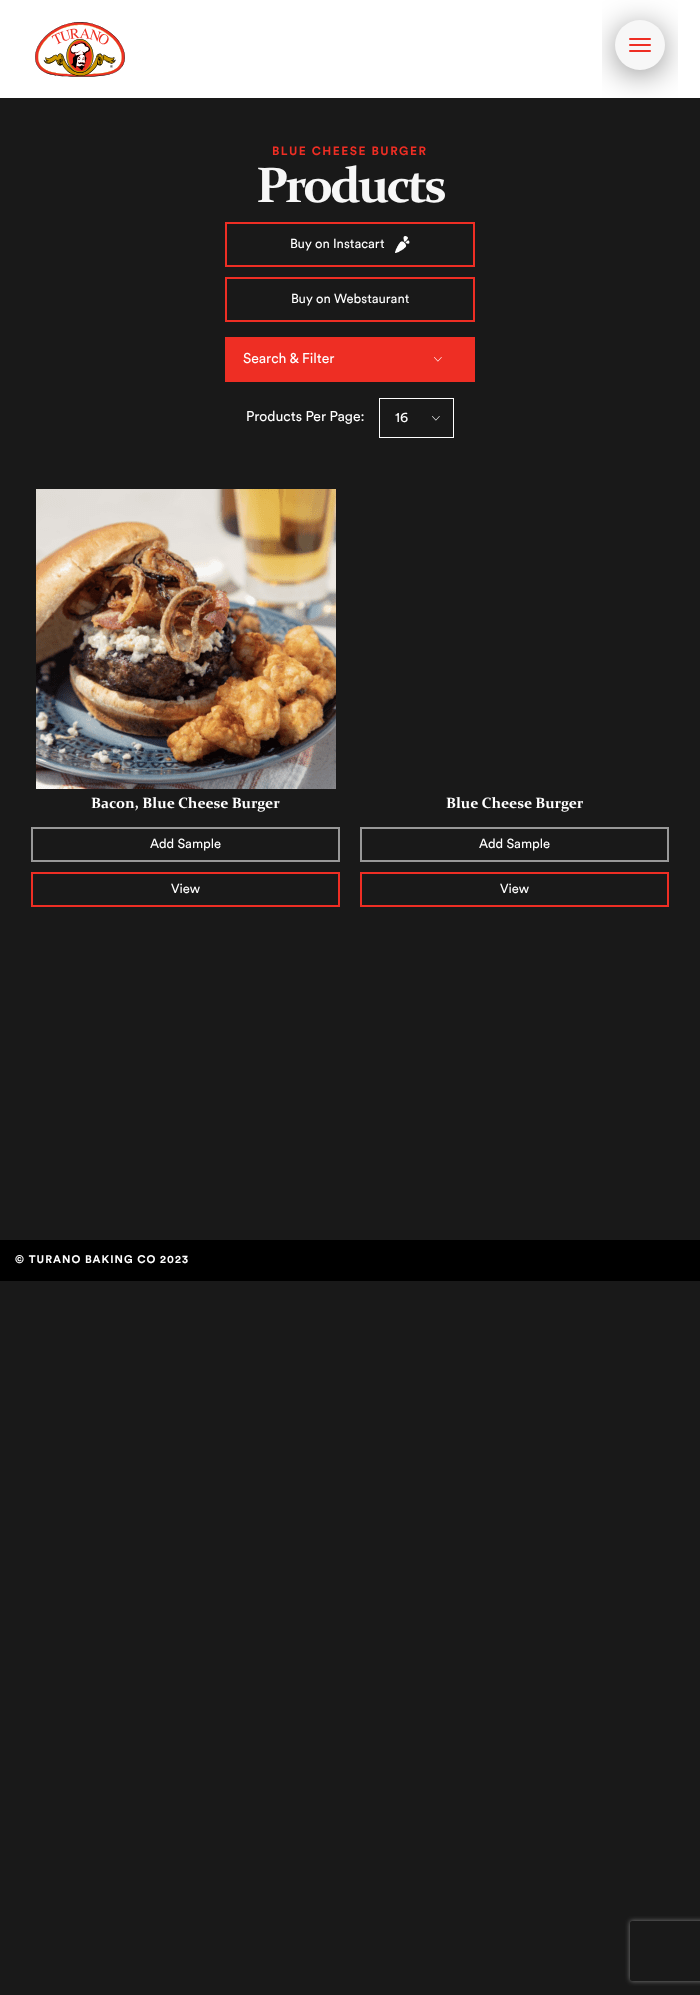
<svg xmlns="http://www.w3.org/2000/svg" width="700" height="1995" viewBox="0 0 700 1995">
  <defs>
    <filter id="blur1" x="-50%" y="-200%" width="200%" height="500%"><feGaussianBlur stdDeviation="17.5"/></filter>
    <clipPath id="clip1"><path d="M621 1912H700V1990H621ZM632 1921H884C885 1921 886 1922 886 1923V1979C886 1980 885 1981 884 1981H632C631 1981 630 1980 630 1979V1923C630 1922 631 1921 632 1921Z" clip-rule="evenodd"/></clipPath>
    <filter id="blur2" x="-50%" y="-200%" width="200%" height="500%"><feGaussianBlur stdDeviation="2.5"/></filter>
  </defs>
  <rect width="100%" height="100%" fill="#191919"/>
  <rect x="0" y="0" width="700" height="98" fill="#ffffff"/>
  <image x="35" y="22" width="90" height="55" href="img1.png"/>
  <rect x="621" y="31" width="38" height="38" rx="19" fill="#000000" fill-opacity="0.75" filter="url(#blur1)"/>
  <circle cx="640" cy="45" r="25" fill="#f7f7f7"/>
  <rect x="629" y="38" width="22" height="2" rx="1" fill="#ee2e24"/>
  <rect x="629" y="44" width="22" height="2" rx="1" fill="#ee2e24"/>
  <rect x="629" y="50" width="22" height="2" rx="1" fill="#ee2e24"/>
  <text x="272" y="155" font-family="Circular" font-size="12" font-weight="bold" letter-spacing="1.5" fill="#ee2e24">BLUE CHEESE BURGER</text>
  <text x="256" y="202" font-family="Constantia" font-size="50" font-weight="bold" letter-spacing="-3" fill="#f7f7f7">Products</text>
  <rect x="226" y="223" width="248" height="43" fill="none" stroke="#ee2e24" stroke-width="2"/>
  <text x="290" y="248" font-family="Circular" font-size="13" fill="#ffffff">Buy on Instacart</text>
  <image x="395" y="236" width="15" height="17" href="img2.png"/>
  <rect x="226" y="278" width="248" height="43" fill="none" stroke="#ee2e24" stroke-width="2"/>
  <text x="291" y="303" font-family="Circular" font-size="13" fill="#ffffff">Buy on Webstaurant</text>
  <rect x="225" y="337" width="250" height="45" fill="#ee2e24"/>
  <text x="243" y="363" font-family="Circular" font-size="14" fill="#ffffff">Search &amp; Filter</text>
  <image x="434" y="357" width="8" height="5" href="img3.png"/>
  <text x="246" y="421" font-family="Circular" font-size="14" fill="#ffffff">Products Per Page:</text>
  <image x="432" y="416" width="8" height="5" href="img4.png"/>
  <rect x="379.5" y="398.5" width="74" height="39" fill="none" stroke="#ffffff"/>
  <text x="395" y="422" font-family="Circular" font-size="14" fill="#ffffff">16</text>
  <image x="36" y="489" width="300" height="300" href="img5.png"/>
  <text x="91" y="808" font-family="Constantia" font-size="15" font-weight="bold" fill="#ffffff">Bacon, Blue Cheese Burger</text>
  <rect x="32" y="828" width="307" height="33" fill="none" stroke="#989898" stroke-width="2"/>
  <text x="150" y="848" font-family="Circular" font-size="13" fill="#ffffff">Add Sample</text>
  <rect x="32" y="873" width="307" height="33" fill="none" stroke="#ee2e24" stroke-width="2"/>
  <text x="171" y="893" font-family="Circular" font-size="13" fill="#ffffff">View</text>
  <text x="446" y="808" font-family="Constantia" font-size="15" font-weight="bold" fill="#ffffff">Blue Cheese Burger</text>
  <rect x="361" y="828" width="307" height="33" fill="none" stroke="#989898" stroke-width="2"/>
  <text x="479" y="848" font-family="Circular" font-size="13" fill="#ffffff">Add Sample</text>
  <rect x="361" y="873" width="307" height="33" fill="none" stroke="#ee2e24" stroke-width="2"/>
  <text x="500" y="893" font-family="Circular" font-size="13" fill="#ffffff">View</text>
  <rect x="0" y="1240" width="700" height="41" fill="#000000"/>
  <text x="15" y="1263" font-family="Circular" font-size="11" font-weight="bold" letter-spacing="1" fill="#ffffff">© TURANO BAKING CO 2023</text>
  <g clip-path="url(#clip1)">
    <rect x="630" y="1921" width="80" height="60" rx="2" fill="#808080" filter="url(#blur2)"/>
  </g>
</svg>
